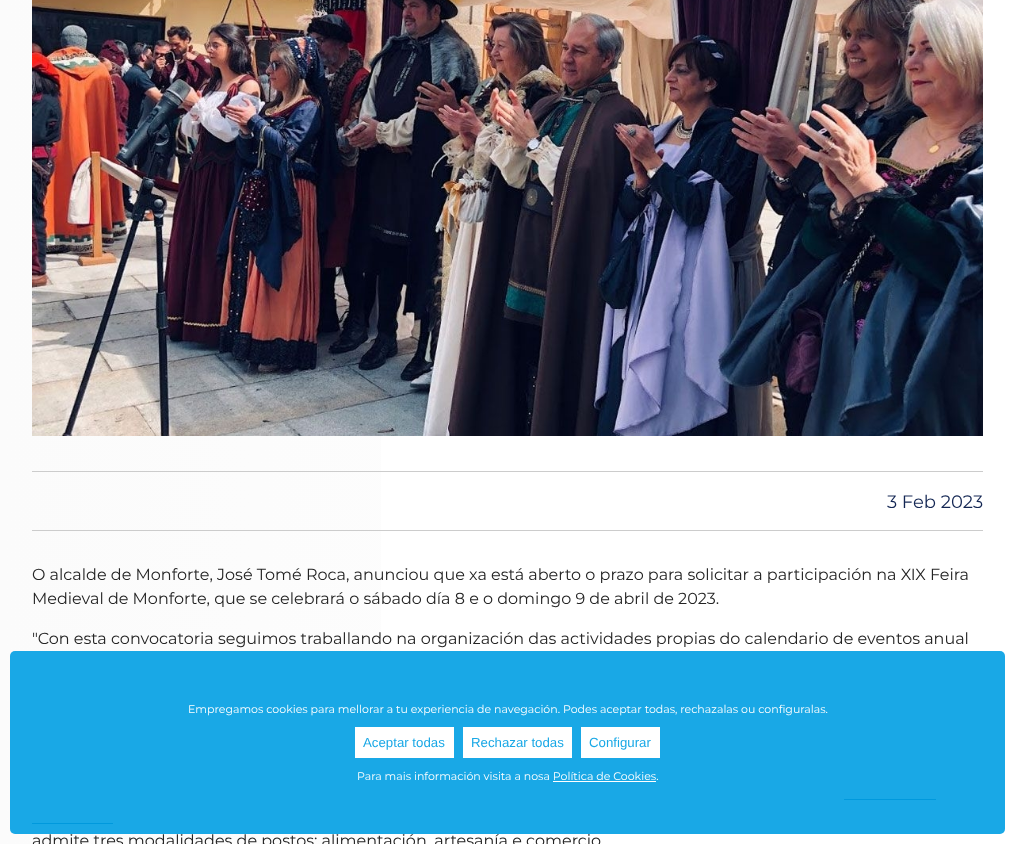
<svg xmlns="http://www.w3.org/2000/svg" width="1015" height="844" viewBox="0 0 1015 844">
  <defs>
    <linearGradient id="g1" gradientUnits="userSpaceOnUse" x1="0" y1="424" x2="1015" y2="423"><stop offset="0" stop-color="#fbfbfb"/><stop offset="0.5" stop-color="#fdfdfd"/><stop offset="1" stop-color="#ffffff"/></linearGradient>
  </defs>
  <rect width="100%" height="100%" fill="#ffffff"/>
  <rect x="0" y="0" width="381" height="844" fill="url(#g1)"/>
  <image x="32" y="0" width="951" height="436" href="img1.png"/>
  <rect x="32" y="471" width="951" height="1" fill="#cccccc"/>
  <rect x="32" y="530" width="951" height="1" fill="#cccccc"/>
  <text x="887" y="508" font-family="Montserrat" font-size="18" font-weight="100" fill="#132653">3 Feb 2023</text>
  <text x="32" y="580" font-family="Montserrat" font-size="16" font-weight="100" fill="#242424">O alcalde de Monforte, José Tomé Roca, anunciou que xa está aberto o prazo para solicitar a participación na XIX Feira</text>
  <text x="32" y="604" font-family="Montserrat" font-size="16" font-weight="100" fill="#242424">Medieval de Monforte, que se celebrará o sábado día 8 e o domingo 9 de abril de 2023.</text>
  <text x="32" y="644" font-family="Montserrat" font-size="16" font-weight="100" fill="#242424">"Con esta convocatoria seguimos traballando na organización das actividades propias do calendario de eventos anual</text>
  <rect x="844" y="799" width="92" height="1" fill="#016ca2"/>
  <rect x="32" y="823" width="81" height="1" fill="#016ca2"/>
  <text x="32" y="846" font-family="Montserrat" font-size="16" font-weight="100" fill="#242424">admite tres modalidades de postos: alimentación, artesanía e comercio</text>
  <rect x="10" y="651" width="995" height="183" rx="5" fill="#009fe3" fill-opacity="0.9"/>
  <text x="188" y="713" font-family="Montserrat" font-size="11" font-weight="100" fill="#ffffff">Empregamos cookies para mellorar a tu experiencia de navegación. Podes aceptar todas, rechazalas ou configuralas.</text>
  <rect x="355" y="727" width="99" height="31" fill="#ffffff"/>
  <text x="363" y="747" font-family="Liberation Sans" font-size="13.25" fill="#19a8e6">Aceptar todas</text>
  <rect x="463" y="727" width="109" height="31" fill="#ffffff"/>
  <text x="471" y="747" font-family="Liberation Sans" font-size="13.25" fill="#19a8e6">Rechazar todas</text>
  <rect x="581" y="727" width="79" height="31" fill="#ffffff"/>
  <text x="589" y="747" font-family="Liberation Sans" font-size="13.25" fill="#19a8e6">Configurar</text>
  <text x="357" y="780" font-family="Montserrat" font-size="11" font-weight="100" fill="#ffffff">Para mais información visita a nosa Política de Cookies.</text>
  <rect x="553" y="781" width="103" height="1" fill="#ffffff"/>
</svg>
